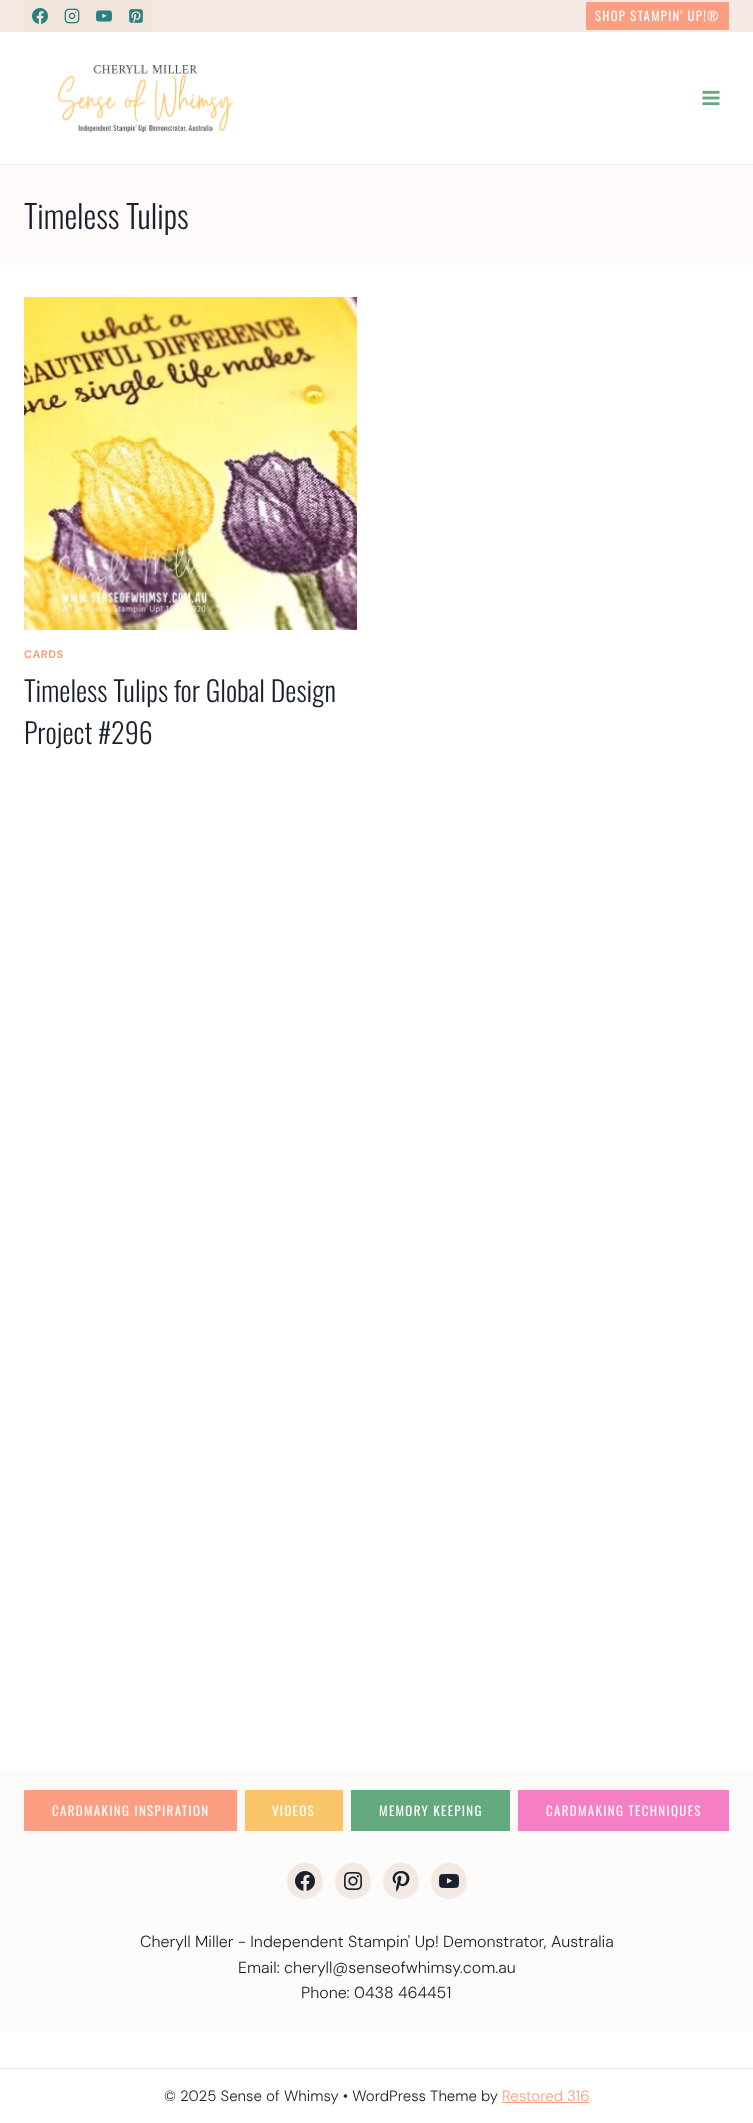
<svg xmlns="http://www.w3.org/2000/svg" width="753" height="2123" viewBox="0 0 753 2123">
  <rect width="100%" height="100%" fill="#ffffff"/>
  <rect x="0" y="0" width="753" height="32" fill="#f4eae3"/>
  <rect x="24" y="0" width="32" height="32" rx="3" fill="#f1e5dc"/>
  <image x="32" y="8" width="16" height="16" href="img1.png"/>
  <rect x="56" y="0" width="32" height="32" rx="3" fill="#f1e5dc"/>
  <image x="64" y="8" width="16" height="16" href="img2.png"/>
  <rect x="88" y="0" width="32" height="32" rx="3" fill="#f1e5dc"/>
  <image x="96" y="10" width="16" height="12" href="img3.png"/>
  <rect x="120" y="0" width="32" height="32" rx="3" fill="#f1e5dc"/>
  <image x="129" y="9" width="14" height="14" href="img4.png"/>
  <rect x="586" y="2" width="143" height="28" fill="#fc9e81"/>
  <text x="595" y="21" font-family="Oswald" font-size="12.75" letter-spacing="1.25" fill="#ffffff">SHOP STAMPIN' UP!®</text>
  <rect x="0" y="164" width="753" height="1" fill="#f4eae3"/>
  <image x="57" y="65" width="177" height="68" href="img5.png"/>
  <image x="702" y="90" width="18" height="16" href="img6.png"/>
  <rect x="0" y="165" width="753" height="100" fill="#fdfaf9"/>
  <text x="24" y="229" font-family="Oswald" font-size="32" font-weight="300" fill="#1a202c">Timeless Tulips</text>
  <image x="24" y="297" width="333" height="333" href="img7.png"/>
  <text x="24" y="658" font-family="DM Sans" font-size="11" font-weight="bold" letter-spacing="0.5" fill="#fc9e81">CARDS</text>
  <text x="24" y="702" font-family="Oswald" font-size="28" font-weight="300" fill="#1a202c">Timeless Tulips for Global Design</text>
  <text x="24" y="744" font-family="Oswald" font-size="28" font-weight="300" fill="#1a202c">Project #296</text>
  <rect x="0" y="1770" width="753" height="262" fill="#fdfbf9"/>
  <rect x="24" y="1790" width="213" height="41" fill="#fc9e81"/>
  <text x="52" y="1816" font-family="Oswald" font-size="13" letter-spacing="1.3" fill="#ffffff">CARDMAKING INSPIRATION</text>
  <rect x="245" y="1790" width="98" height="41" fill="#fac469"/>
  <text x="272" y="1816" font-family="Oswald" font-size="13" letter-spacing="1.3" fill="#ffffff">VIDEOS</text>
  <rect x="351" y="1790" width="159" height="41" fill="#64a87d"/>
  <text x="379" y="1816" font-family="Oswald" font-size="13" letter-spacing="1.3" fill="#ffffff">MEMORY KEEPING</text>
  <rect x="518" y="1790" width="211" height="41" fill="#f57ec5"/>
  <text x="546" y="1816" font-family="Oswald" font-size="13" letter-spacing="1.3" fill="#ffffff">CARDMAKING TECHNIQUES</text>
  <circle cx="305" cy="1881" r="18" fill="#f3e9e2"/>
  <image x="295" y="1871" width="20" height="20" href="img8.png"/>
  <circle cx="353" cy="1881" r="18" fill="#f3e9e2"/>
  <image x="344" y="1872" width="18" height="18" href="img9.png"/>
  <circle cx="401" cy="1881" r="18" fill="#f3e9e2"/>
  <image x="392" y="1871" width="18" height="21" href="img10.png"/>
  <circle cx="449" cy="1881" r="18" fill="#f3e9e2"/>
  <image x="439" y="1874" width="20" height="14" href="img11.png"/>
  <text x="140" y="1947" font-family="DM Sans" font-size="16" font-weight="300" fill="#1a202c">Cheryll Miller - Independent Stampin' Up! Demonstrator, Australia</text>
  <text x="238" y="1973" font-family="DM Sans" font-size="16" font-weight="300" fill="#1a202c">Email: cheryll@senseofwhimsy.com.au</text>
  <text x="301" y="1998" font-family="DM Sans" font-size="16" font-weight="300" fill="#1a202c">Phone: 0438 464451</text>
  <rect x="0" y="2068" width="753" height="1" fill="#f4eae3"/>
  <text x="164" y="2101" font-family="DM Sans" font-size="15" font-weight="300" fill="#1a202c">© 2025 Sense of Whimsy • WordPress Theme by</text>
  <text x="502" y="2101" font-family="DM Sans" font-size="15" font-weight="300" fill="#fc9e81">Restored 316</text>
  <rect x="502" y="2102" width="87" height="1" fill="#fc9e81"/>
</svg>
